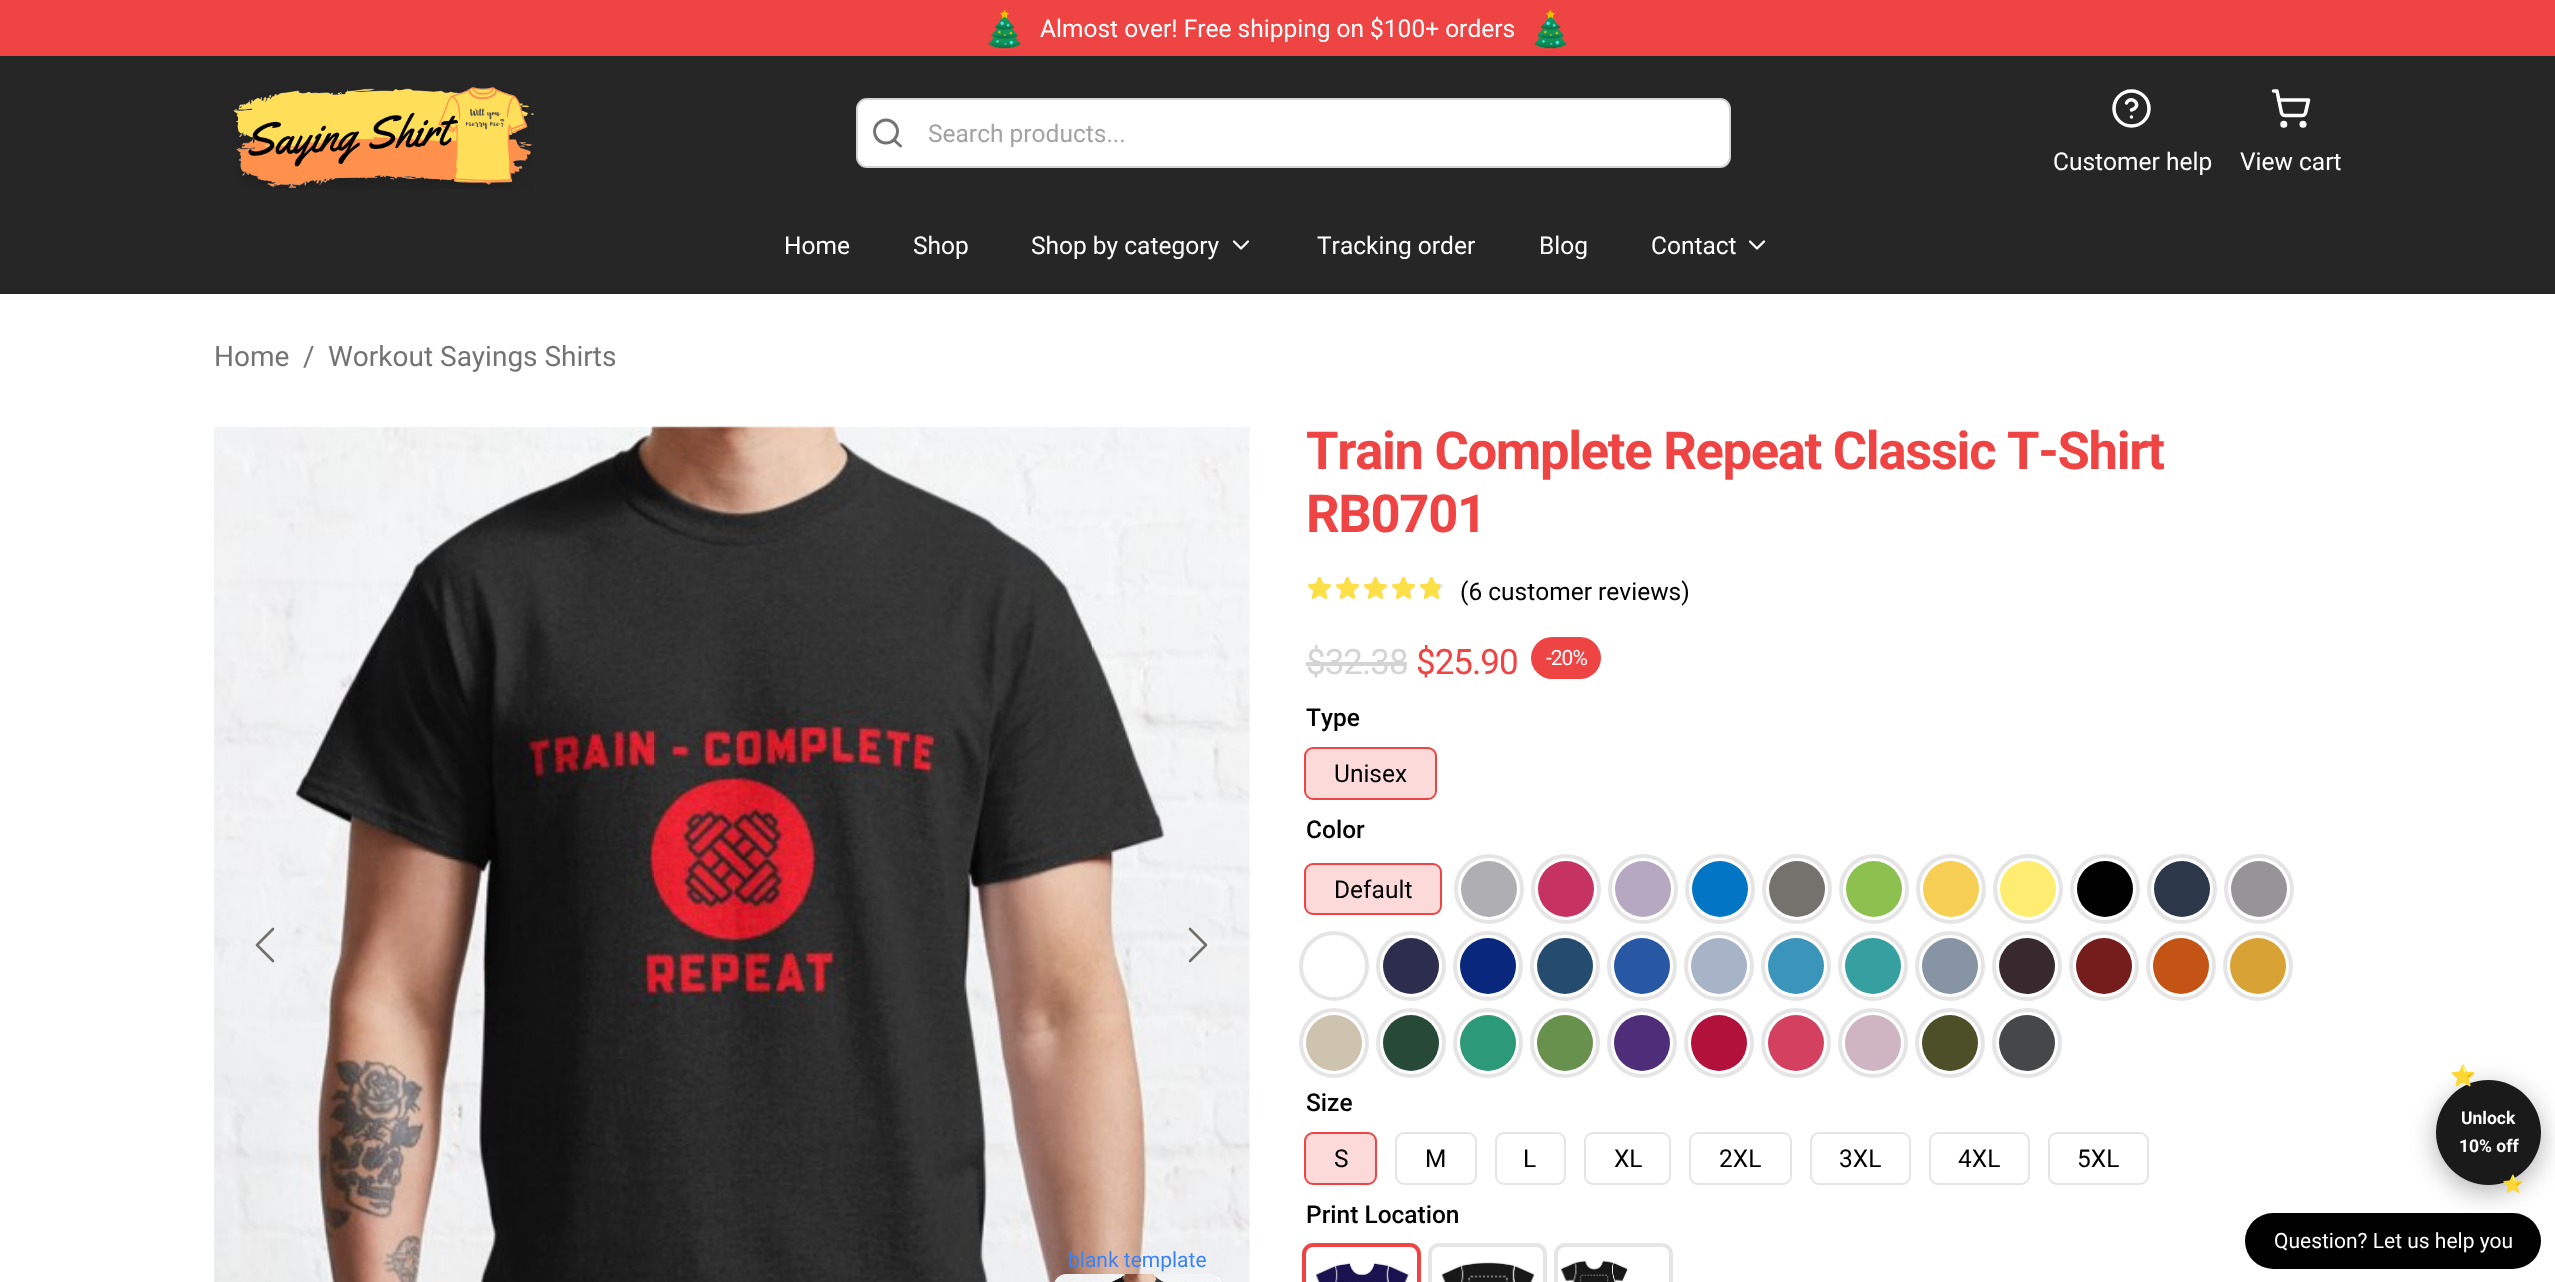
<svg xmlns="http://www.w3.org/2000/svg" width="2555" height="1282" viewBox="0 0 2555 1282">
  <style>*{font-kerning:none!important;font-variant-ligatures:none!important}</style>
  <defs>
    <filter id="blur1" x="-50%" y="-200%" width="200%" height="500%"><feGaussianBlur stdDeviation="13"/></filter>
  </defs>
  <rect width="100%" height="100%" fill="#ffffff"/>
  <rect x="0" y="0" width="2555" height="56" fill="#ef4444"/>
  <image x="988" y="10" width="33" height="39" href="img1.png"/>
  <text x="1040" y="37" font-family="Roboto" font-size="24.5" fill="#ffffff">Almost over! Free shipping on $100+ orders</text>
  <image x="1534" y="10" width="33" height="39" href="img2.png"/>
  <rect x="0" y="56" width="2555" height="238" fill="#262626"/>
  <image x="233" y="87" width="301" height="102" href="img3.png"/>
  <rect x="857" y="99" width="873" height="68" rx="10" fill="#ffffff" stroke="#d4d4d4" stroke-width="2"/>
  <path d="M900.5 146L894 140" fill="none" stroke="#737373" stroke-width="2.9" stroke-linecap="round" stroke-linejoin="round"/>
  <circle cx="886" cy="131.5" r="11.5" fill="none" stroke="#737373" stroke-width="2.9"/>
  <text x="928" y="142" font-family="Roboto" font-size="24.5" fill="#a3a3a3">Search products...</text>
  <circle cx="2131.5" cy="108.5" r="17.5" fill="none" stroke="#ffffff" stroke-width="3.5"/>
  <path d="M2126.5 103C2127 102 2127.5 101 2128.5 100.5C2135 97 2141.5 107 2131.5 110M2131.5 117H2131.5" fill="none" stroke="#ffffff" stroke-width="3.5" stroke-linecap="round" stroke-linejoin="round"/>
  <text x="2053" y="170" font-family="Roboto" font-size="24.5" fill="#ffffff">Customer help</text>
  <circle cx="2283.8" cy="124.2" r="1.8" fill="none" stroke="#ffffff" stroke-width="3.5"/>
  <circle cx="2303" cy="124.2" r="1.8" fill="none" stroke="#ffffff" stroke-width="3.5"/>
  <path d="M2273.5 91H2277L2281.5 113C2282 114.5 2283.5 115.5 2285 115.5H2302C2303.5 115.5 2305 114.5 2305.5 113L2308.5 100H2278.5" fill="none" stroke="#ffffff" stroke-width="3.5" stroke-linecap="round" stroke-linejoin="round"/>
  <text x="2240" y="170" font-family="Roboto" font-size="24.5" fill="#ffffff">View cart</text>
  <text x="784" y="254" font-family="Roboto" font-size="24.5" fill="#ffffff">Home</text>
  <text x="913" y="254" font-family="Roboto" font-size="24.5" fill="#ffffff">Shop</text>
  <text x="1031" y="254" font-family="Roboto" font-size="24.5" fill="#ffffff">Shop by category</text>
  <path d="M1234 241.5L1241 248.5L1248 241.5" fill="none" stroke="#ffffff" stroke-width="2.3" stroke-linecap="round" stroke-linejoin="round"/>
  <text x="1317" y="254" font-family="Roboto" font-size="24.5" fill="#ffffff">Tracking order</text>
  <text x="1539" y="254" font-family="Roboto" font-size="24.5" fill="#ffffff">Blog</text>
  <text x="1651" y="254" font-family="Roboto" font-size="24.5" fill="#ffffff">Contact</text>
  <path d="M1750 241.5L1757 248.5L1764 241.5" fill="none" stroke="#ffffff" stroke-width="2.3" stroke-linecap="round" stroke-linejoin="round"/>
  <text x="214" y="366" font-family="Roboto" font-size="28" fill="#737373">Home</text>
  <text x="303" y="366" font-family="Roboto" font-size="28" fill="#737373">/</text>
  <text x="328" y="366" font-family="Roboto" font-size="28" fill="#737373">Workout Sayings Shirts</text>
  <text x="1306" y="469" font-family="Roboto" font-size="52.5" font-weight="bold" letter-spacing="-1.3" fill="#ef4444">Train Complete Repeat Classic T-Shirt</text>
  <text x="1306" y="532" font-family="Roboto" font-size="52.5" font-weight="bold" letter-spacing="-1.3" fill="#ef4444">RB0701</text>
  <image x="1308" y="577" width="23" height="22" href="img6.png"/>
  <image x="1308" y="576" width="23" height="23" href="img4.png"/>
  <image x="1336" y="577" width="23" height="22" href="img6.png"/>
  <image x="1336" y="576" width="23" height="23" href="img4.png"/>
  <image x="1364" y="577" width="23" height="22" href="img6.png"/>
  <image x="1364" y="576" width="23" height="23" href="img4.png"/>
  <image x="1392" y="577" width="23" height="22" href="img6.png"/>
  <image x="1392" y="576" width="23" height="23" href="img4.png"/>
  <image x="1420" y="577" width="23" height="22" href="img6.png"/>
  <image x="1420" y="576" width="20" height="23" href="img5.png"/>
  <text x="1460" y="600" font-family="Roboto" font-size="24.5" fill="#000000">(6 customer reviews)</text>
  <text x="1306" y="674" font-family="Roboto" font-size="35" letter-spacing="-1" fill="#d4d4d4">$32.38</text>
  <rect x="1306" y="662" width="101" height="4" fill="#d4d4d4"/>
  <text x="1416" y="674" font-family="Roboto" font-size="35" letter-spacing="-1" fill="#ef4444">$25.90</text>
  <rect x="1531" y="637" width="70" height="42" rx="21" fill="#ef4444"/>
  <text x="1546" y="665" font-family="Roboto" font-size="21" letter-spacing="-1" fill="#ffffff">-20%</text>
  <text x="1306" y="726" font-family="Roboto" font-size="24.5" font-weight="500" fill="#000000">Type</text>
  <rect x="1305" y="748" width="131" height="51" rx="8" fill="none" stroke="#ef4444" stroke-width="2"/>
  <rect x="1306" y="749" width="129" height="49" rx="7" fill="#ef4444" fill-opacity="0.2"/>
  <text x="1334" y="782" font-family="Roboto" font-size="24.5" fill="#000000">Unisex</text>
  <text x="1306" y="838" font-family="Roboto" font-size="24.5" font-weight="500" fill="#000000">Color</text>
  <rect x="1305" y="864" width="136" height="50" rx="8" fill="none" stroke="#ef4444" stroke-width="2"/>
  <rect x="1306" y="865" width="134" height="49" rx="7" fill="#ef4444" fill-opacity="0.2"/>
  <text x="1334" y="898" font-family="Roboto" font-size="24.5" fill="#000000">Default</text>
  <circle cx="1489" cy="889" r="28" fill="#afafb3"/>
  <circle cx="1489" cy="889" r="33" fill="none" stroke="#e5e5e5" stroke-width="4"/>
  <circle cx="1566" cy="889" r="28" fill="#c63362"/>
  <circle cx="1566" cy="889" r="33" fill="none" stroke="#e5e5e5" stroke-width="4"/>
  <circle cx="1643" cy="889" r="28" fill="#b7a8c2"/>
  <circle cx="1643" cy="889" r="33" fill="none" stroke="#e5e5e5" stroke-width="4"/>
  <circle cx="1720" cy="889" r="28" fill="#0275c4"/>
  <circle cx="1720" cy="889" r="33" fill="none" stroke="#e5e5e5" stroke-width="4"/>
  <circle cx="1797" cy="889" r="28" fill="#73726d"/>
  <circle cx="1797" cy="889" r="33" fill="none" stroke="#e5e5e5" stroke-width="4"/>
  <circle cx="1874" cy="889" r="28" fill="#8cc04f"/>
  <circle cx="1874" cy="889" r="33" fill="none" stroke="#e5e5e5" stroke-width="4"/>
  <circle cx="1951" cy="889" r="28" fill="#f6cf54"/>
  <circle cx="1951" cy="889" r="33" fill="none" stroke="#e5e5e5" stroke-width="4"/>
  <circle cx="2028" cy="889" r="28" fill="#ffed71"/>
  <circle cx="2028" cy="889" r="33" fill="none" stroke="#e5e5e5" stroke-width="4"/>
  <circle cx="2105" cy="889" r="28" fill="#000000"/>
  <circle cx="2105" cy="889" r="33" fill="none" stroke="#e5e5e5" stroke-width="4"/>
  <circle cx="2182" cy="889" r="28" fill="#2c3749"/>
  <circle cx="2182" cy="889" r="33" fill="none" stroke="#e5e5e5" stroke-width="4"/>
  <circle cx="2259" cy="889" r="28" fill="#969497"/>
  <circle cx="2259" cy="889" r="33" fill="none" stroke="#e5e5e5" stroke-width="4"/>
  <circle cx="1334" cy="966" r="33" fill="none" stroke="#e5e5e5" stroke-width="4"/>
  <circle cx="1411" cy="966" r="28" fill="#2d2e4e"/>
  <circle cx="1411" cy="966" r="33" fill="none" stroke="#e5e5e5" stroke-width="4"/>
  <circle cx="1488" cy="966" r="28" fill="#0a277e"/>
  <circle cx="1488" cy="966" r="33" fill="none" stroke="#e5e5e5" stroke-width="4"/>
  <circle cx="1565" cy="966" r="28" fill="#254b6f"/>
  <circle cx="1565" cy="966" r="33" fill="none" stroke="#e5e5e5" stroke-width="4"/>
  <circle cx="1642" cy="966" r="28" fill="#2858a4"/>
  <circle cx="1642" cy="966" r="33" fill="none" stroke="#e5e5e5" stroke-width="4"/>
  <circle cx="1719" cy="966" r="28" fill="#a7b3c6"/>
  <circle cx="1719" cy="966" r="33" fill="none" stroke="#e5e5e5" stroke-width="4"/>
  <circle cx="1796" cy="966" r="28" fill="#3b94b9"/>
  <circle cx="1796" cy="966" r="33" fill="none" stroke="#e5e5e5" stroke-width="4"/>
  <circle cx="1873" cy="966" r="28" fill="#35a09f"/>
  <circle cx="1873" cy="966" r="33" fill="none" stroke="#e5e5e5" stroke-width="4"/>
  <circle cx="1950" cy="966" r="28" fill="#8794a3"/>
  <circle cx="1950" cy="966" r="33" fill="none" stroke="#e5e5e5" stroke-width="4"/>
  <circle cx="2027" cy="966" r="28" fill="#38292e"/>
  <circle cx="2027" cy="966" r="33" fill="none" stroke="#e5e5e5" stroke-width="4"/>
  <circle cx="2104" cy="966" r="28" fill="#751d1c"/>
  <circle cx="2104" cy="966" r="33" fill="none" stroke="#e5e5e5" stroke-width="4"/>
  <circle cx="2181" cy="966" r="28" fill="#c35416"/>
  <circle cx="2181" cy="966" r="33" fill="none" stroke="#e5e5e5" stroke-width="4"/>
  <circle cx="2258" cy="966" r="28" fill="#d9a234"/>
  <circle cx="2258" cy="966" r="33" fill="none" stroke="#e5e5e5" stroke-width="4"/>
  <circle cx="1334" cy="1043" r="28" fill="#cdc3ae"/>
  <circle cx="1334" cy="1043" r="33" fill="none" stroke="#e5e5e5" stroke-width="4"/>
  <circle cx="1411" cy="1043" r="28" fill="#274a38"/>
  <circle cx="1411" cy="1043" r="33" fill="none" stroke="#e5e5e5" stroke-width="4"/>
  <circle cx="1488" cy="1043" r="28" fill="#2c9978"/>
  <circle cx="1488" cy="1043" r="33" fill="none" stroke="#e5e5e5" stroke-width="4"/>
  <circle cx="1565" cy="1043" r="28" fill="#68914d"/>
  <circle cx="1565" cy="1043" r="33" fill="none" stroke="#e5e5e5" stroke-width="4"/>
  <circle cx="1642" cy="1043" r="28" fill="#4e2e79"/>
  <circle cx="1642" cy="1043" r="33" fill="none" stroke="#e5e5e5" stroke-width="4"/>
  <circle cx="1719" cy="1043" r="28" fill="#b2113c"/>
  <circle cx="1719" cy="1043" r="33" fill="none" stroke="#e5e5e5" stroke-width="4"/>
  <circle cx="1796" cy="1043" r="28" fill="#d44060"/>
  <circle cx="1796" cy="1043" r="33" fill="none" stroke="#e5e5e5" stroke-width="4"/>
  <circle cx="1873" cy="1043" r="28" fill="#cfb5c2"/>
  <circle cx="1873" cy="1043" r="33" fill="none" stroke="#e5e5e5" stroke-width="4"/>
  <circle cx="1950" cy="1043" r="28" fill="#4d4f28"/>
  <circle cx="1950" cy="1043" r="33" fill="none" stroke="#e5e5e5" stroke-width="4"/>
  <circle cx="2027" cy="1043" r="28" fill="#464749"/>
  <circle cx="2027" cy="1043" r="33" fill="none" stroke="#e5e5e5" stroke-width="4"/>
  <text x="1306" y="1111" font-family="Roboto" font-size="24.5" font-weight="500" fill="#000000">Size</text>
  <rect x="1305" y="1133" width="71" height="51" rx="8" fill="none" stroke="#ef4444" stroke-width="2"/>
  <rect x="1306" y="1134" width="70" height="49" rx="7" fill="#ef4444" fill-opacity="0.2"/>
  <text x="1334" y="1167" font-family="Roboto" font-size="24.5" fill="#000000">S</text>
  <rect x="1396" y="1133" width="80" height="51" rx="8" fill="none" stroke="#e5e5e5" stroke-width="2"/>
  <text x="1425" y="1167" font-family="Roboto" font-size="24.5" fill="#000000">M</text>
  <rect x="1496" y="1133" width="69" height="51" rx="8" fill="none" stroke="#e5e5e5" stroke-width="2"/>
  <text x="1523" y="1167" font-family="Roboto" font-size="24.5" fill="#000000">L</text>
  <rect x="1585" y="1133" width="85" height="51" rx="8" fill="none" stroke="#e5e5e5" stroke-width="2"/>
  <text x="1614" y="1167" font-family="Roboto" font-size="24.5" fill="#000000">XL</text>
  <rect x="1690" y="1133" width="101" height="51" rx="8" fill="none" stroke="#e5e5e5" stroke-width="2"/>
  <text x="1719" y="1167" font-family="Roboto" font-size="24.5" fill="#000000">2XL</text>
  <rect x="1811" y="1133" width="99" height="51" rx="8" fill="none" stroke="#e5e5e5" stroke-width="2"/>
  <text x="1839" y="1167" font-family="Roboto" font-size="24.5" fill="#000000">3XL</text>
  <rect x="1930" y="1133" width="99" height="51" rx="8" fill="none" stroke="#e5e5e5" stroke-width="2"/>
  <text x="1958" y="1167" font-family="Roboto" font-size="24.5" fill="#000000">4XL</text>
  <rect x="2049" y="1133" width="99" height="51" rx="8" fill="none" stroke="#e5e5e5" stroke-width="2"/>
  <text x="2077" y="1167" font-family="Roboto" font-size="24.5" fill="#000000">5XL</text>
  <text x="1306" y="1223" font-family="Roboto" font-size="24.5" font-weight="500" fill="#000000">Print Location</text>
  <image x="1311" y="1247" width="101" height="35" href="img7.png"/>
  <rect x="1304" y="1245" width="115" height="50" rx="9" fill="none" stroke="#ef4444" stroke-width="4"/>
  <image x="1441" y="1262" width="94" height="20" href="img8.png"/>
  <rect x="1430" y="1245" width="115" height="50" rx="9" fill="none" stroke="#e5e5e5" stroke-width="4"/>
  <image x="1560" y="1260" width="68" height="22" href="img9.png"/>
  <rect x="1556" y="1245" width="115" height="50" rx="9" fill="none" stroke="#e5e5e5" stroke-width="4"/>
  <image x="214" y="426" width="1036" height="856" href="img10.png"/>
  <path d="M273 929L257 945L273 961" fill="none" stroke="#706f6c" stroke-width="2.6" stroke-linecap="round" stroke-linejoin="round"/>
  <path d="M1190 929L1206 945L1190 961" fill="none" stroke="#706f6c" stroke-width="2.6" stroke-linecap="round" stroke-linejoin="round"/>
  <text x="1068" y="1267" font-family="Roboto" font-size="21" fill="#3b82f6">blank template</text>
  <rect x="1054" y="1274" width="168" height="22" rx="14" fill="#ffffff"/>
  <image x="1054" y="1274" width="166" height="8" href="img11.png"/>
  <rect x="2245" y="1213" width="296" height="56" rx="28" fill="#000000"/>
  <rect x="2436" y="1087" width="105" height="105" rx="52.5" fill="#000000" fill-opacity="0.3" filter="url(#blur1)"/>
  <circle cx="2488.5" cy="1132.5" r="52.5" fill="#1a1a1a"/>
  <text x="2450" y="1083" font-family="Noto Color Emoji" font-size="21" font-weight="bold" fill="#ffd700">⭐</text>
  <text x="2461" y="1124" font-family="Roboto" font-size="17.5" font-weight="bold" fill="#ffffff">Unlock</text>
  <text x="2459" y="1152" font-family="Roboto" font-size="17.5" font-weight="bold" fill="#ffffff">10% off</text>
  <text x="2502" y="1190" font-family="Noto Color Emoji" font-size="17.5" font-weight="bold" fill="#ffd700">⭐</text>
  <text x="2274" y="1248" font-family="Roboto" font-size="21" fill="#ffffff">Question? Let us help you</text>
</svg>
